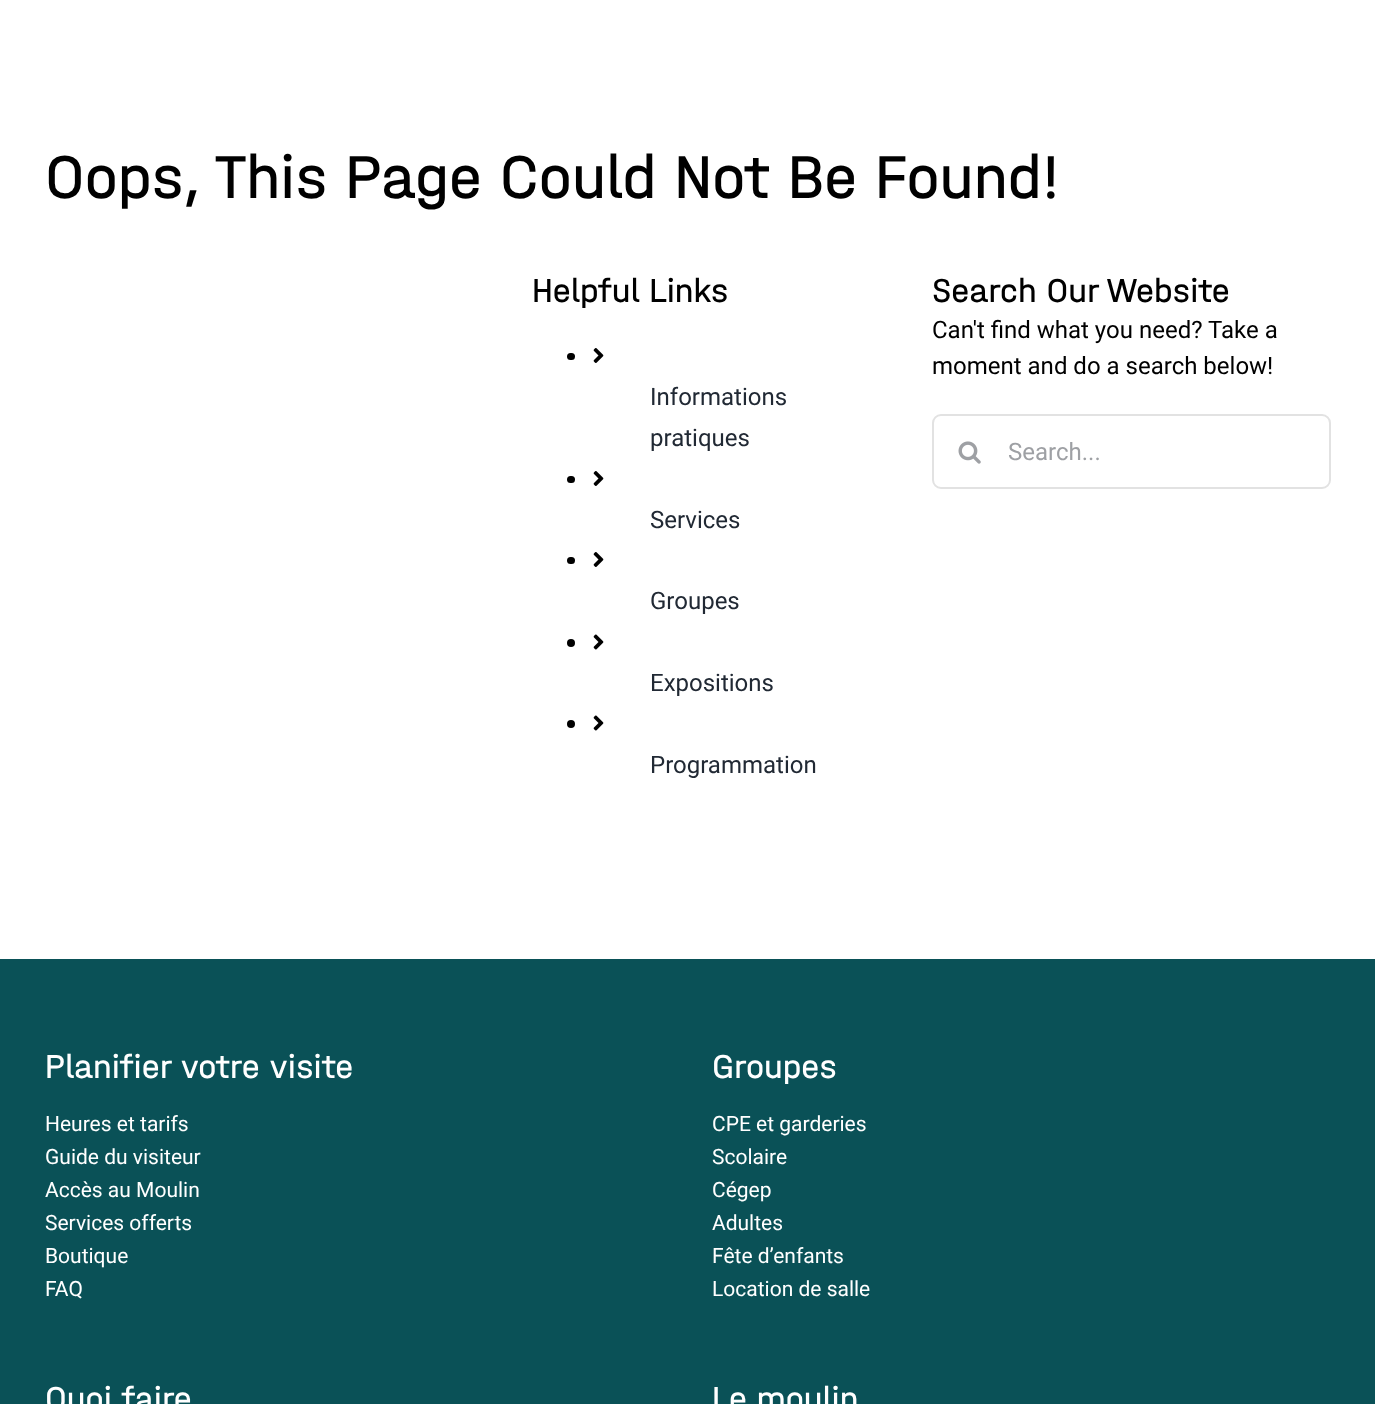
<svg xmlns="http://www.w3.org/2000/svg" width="1375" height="1404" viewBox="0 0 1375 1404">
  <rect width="100%" height="100%" fill="#ffffff"/>
  <text x="45" y="198" font-family="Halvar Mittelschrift" font-size="63.8" fill="#000000">Oops, This Page Could Not Be Found!</text>
  <text x="532" y="302" font-family="Halvar Mittelschrift" font-size="35" fill="#000000">Helpful Links</text>
  <rect x="567" y="353" width="8" height="7" rx="3.5" fill="#000000"/>
  <image x="593" y="348" width="11" height="15" href="img1.png"/>
  <text x="650" y="405" font-family="Roboto" font-size="24" fill="#212934">Informations</text>
  <text x="650" y="446" font-family="Roboto" font-size="24" fill="#212934">pratiques</text>
  <rect x="567" y="476" width="8" height="7" rx="3.5" fill="#000000"/>
  <image x="593" y="471" width="11" height="15" href="img1.png"/>
  <text x="650" y="528" font-family="Roboto" font-size="24" fill="#212934">Services</text>
  <rect x="567" y="557" width="8" height="7" rx="3.5" fill="#000000"/>
  <image x="593" y="552" width="11" height="15" href="img1.png"/>
  <text x="650" y="609" font-family="Roboto" font-size="24" fill="#212934">Groupes</text>
  <circle cx="571" cy="643" r="4" fill="#000000"/>
  <image x="593" y="634" width="11" height="16" href="img2.png"/>
  <text x="650" y="691" font-family="Roboto" font-size="24" fill="#212934">Expositions</text>
  <circle cx="571" cy="724" r="4" fill="#000000"/>
  <image x="593" y="715" width="11" height="16" href="img2.png"/>
  <text x="650" y="773" font-family="Roboto" font-size="24" fill="#212934">Programmation</text>
  <text x="932" y="302" font-family="Halvar Mittelschrift" font-size="35" fill="#000000">Search Our Website</text>
  <text x="932" y="338" font-family="Roboto" font-size="24" fill="#000000">Can't find what you need? Take a</text>
  <text x="932" y="374" font-family="Roboto" font-size="24" fill="#000000">moment and do a search below!</text>
  <rect x="933" y="415" width="397" height="73" rx="8" fill="none" stroke="#e2e2e2" stroke-width="2"/>
  <image x="958" y="441" width="23" height="23" href="img3.png"/>
  <text x="1008" y="460" font-family="Roboto" font-size="24" fill="#9ea0a4">Search...</text>
  <rect x="0" y="959" width="1375" height="445" fill="#0a5157"/>
  <text x="45" y="1078" font-family="Halvar Mittelschrift" font-size="35" fill="#ffffff">Planifier votre visite</text>
  <text x="45" y="1131" font-family="Roboto" font-size="21" fill="#ffffff">Heures et tarifs</text>
  <text x="45" y="1164" font-family="Roboto" font-size="21" fill="#ffffff">Guide du visiteur</text>
  <text x="45" y="1197" font-family="Roboto" font-size="21" fill="#ffffff">Accès au Moulin</text>
  <text x="45" y="1230" font-family="Roboto" font-size="21" fill="#ffffff">Services offerts</text>
  <text x="45" y="1263" font-family="Roboto" font-size="21" fill="#ffffff">Boutique</text>
  <text x="45" y="1296" font-family="Roboto" font-size="21" fill="#ffffff">FAQ</text>
  <text x="45" y="1410" font-family="Halvar Mittelschrift" font-size="35" fill="#ffffff">Quoi faire</text>
  <text x="712" y="1078" font-family="Halvar Mittelschrift" font-size="35" fill="#ffffff">Groupes</text>
  <text x="712" y="1131" font-family="Roboto" font-size="21" fill="#ffffff">CPE et garderies</text>
  <text x="712" y="1164" font-family="Roboto" font-size="21" fill="#ffffff">Scolaire</text>
  <text x="712" y="1197" font-family="Roboto" font-size="21" fill="#ffffff">Cégep</text>
  <text x="712" y="1230" font-family="Roboto" font-size="21" fill="#ffffff">Adultes</text>
  <text x="712" y="1263" font-family="Roboto" font-size="21" fill="#ffffff">Fête d’enfants</text>
  <text x="712" y="1296" font-family="Roboto" font-size="21" fill="#ffffff">Location de salle</text>
  <text x="712" y="1410" font-family="Halvar Mittelschrift" font-size="35" fill="#ffffff">Le moulin</text>
</svg>
